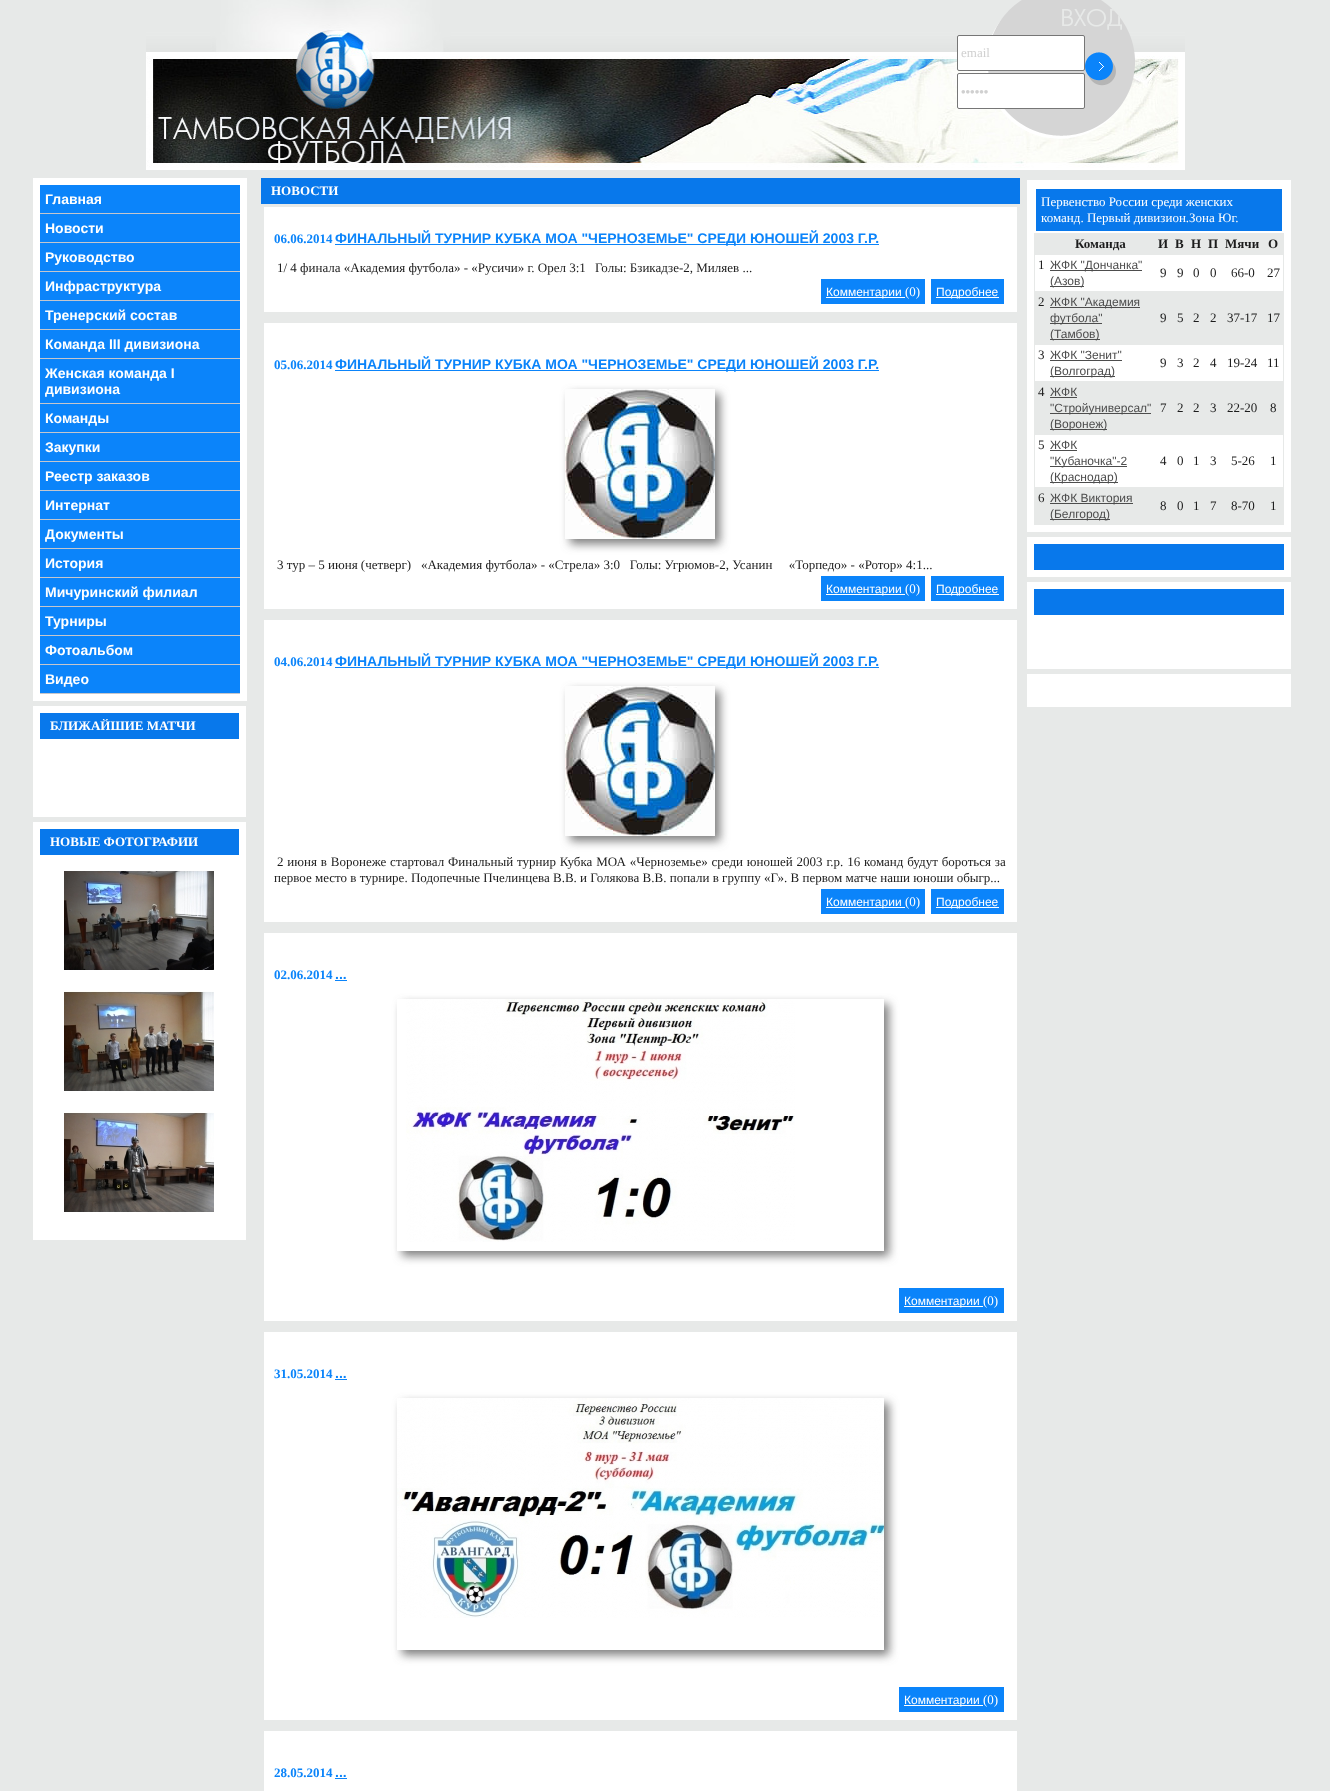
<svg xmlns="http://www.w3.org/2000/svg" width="1330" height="1791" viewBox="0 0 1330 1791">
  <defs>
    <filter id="blur1" x="-50%" y="-200%" width="200%" height="500%"><feGaussianBlur stdDeviation="5"/></filter>
    <clipPath id="clip1"><path d="M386 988H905V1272H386ZM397 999H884V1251H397Z" clip-rule="evenodd"/></clipPath>
    <clipPath id="clip2"><path d="M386 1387H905V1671H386ZM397 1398H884V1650H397Z" clip-rule="evenodd"/></clipPath>
  </defs>
  <rect width="100%" height="100%" fill="#e7e9e8"/>
  <image x="146" y="0" width="1039" height="170" href="img1.png"/>
  <image x="986" y="0" width="149" height="139" href="img2.png"/>
  <rect x="957.5" y="35.5" width="127" height="35" rx="1.5" fill="#ffffff" stroke="#767676"/>
  <text x="961" y="57" font-family="Liberation Serif" font-size="13" fill="#d0d0d0">email</text>
  <rect x="957.5" y="73.5" width="127" height="35" rx="1.5" fill="#ffffff" stroke="#767676"/>
  <text x="961" y="96" font-family="Liberation Sans" font-size="13" fill="#d0d0d0">••••••</text>
  <image x="1085" y="52" width="31" height="34" href="img3.png"/>
  <rect x="33" y="178" width="214" height="523" fill="#ffffff"/>
  <rect x="40" y="185" width="200" height="28" fill="#0b84fa"/>
  <rect x="40" y="213" width="200" height="1" fill="#c5c6cc"/>
  <text x="45" y="204" font-family="Liberation Sans" font-size="14" font-weight="bold" fill="#ffffff">Главная</text>
  <rect x="40" y="214" width="200" height="28" fill="#0b84fa"/>
  <rect x="40" y="242" width="200" height="1" fill="#c5c6cc"/>
  <text x="45" y="233" font-family="Liberation Sans" font-size="14" font-weight="bold" fill="#ffffff">Новости</text>
  <rect x="40" y="243" width="200" height="28" fill="#0b84fa"/>
  <rect x="40" y="271" width="200" height="1" fill="#c5c6cc"/>
  <text x="45" y="262" font-family="Liberation Sans" font-size="14" font-weight="bold" fill="#ffffff">Руководство</text>
  <rect x="40" y="272" width="200" height="28" fill="#0b84fa"/>
  <rect x="40" y="300" width="200" height="1" fill="#c5c6cc"/>
  <text x="45" y="291" font-family="Liberation Sans" font-size="14" font-weight="bold" fill="#ffffff">Инфраструктура</text>
  <rect x="40" y="301" width="200" height="28" fill="#0b84fa"/>
  <rect x="40" y="329" width="200" height="1" fill="#c5c6cc"/>
  <text x="45" y="320" font-family="Liberation Sans" font-size="14" font-weight="bold" fill="#ffffff">Тренерский состав</text>
  <rect x="40" y="330" width="200" height="28" fill="#0b84fa"/>
  <rect x="40" y="358" width="200" height="1" fill="#c5c6cc"/>
  <text x="45" y="349" font-family="Liberation Sans" font-size="14" font-weight="bold" fill="#ffffff">Команда III дивизиона</text>
  <rect x="40" y="359" width="200" height="44" fill="#0b84fa"/>
  <rect x="40" y="403" width="200" height="1" fill="#c5c6cc"/>
  <text x="45" y="378" font-family="Liberation Sans" font-size="14" font-weight="bold" fill="#ffffff">Женская команда I</text>
  <text x="45" y="394" font-family="Liberation Sans" font-size="14" font-weight="bold" fill="#ffffff">дивизиона</text>
  <rect x="40" y="404" width="200" height="28" fill="#0b84fa"/>
  <rect x="40" y="432" width="200" height="1" fill="#c5c6cc"/>
  <text x="45" y="423" font-family="Liberation Sans" font-size="14" font-weight="bold" fill="#ffffff">Команды</text>
  <rect x="40" y="433" width="200" height="28" fill="#0b84fa"/>
  <rect x="40" y="461" width="200" height="1" fill="#c5c6cc"/>
  <text x="45" y="452" font-family="Liberation Sans" font-size="14" font-weight="bold" fill="#ffffff">Закупки</text>
  <rect x="40" y="462" width="200" height="28" fill="#0b84fa"/>
  <rect x="40" y="490" width="200" height="1" fill="#c5c6cc"/>
  <text x="45" y="481" font-family="Liberation Sans" font-size="14" font-weight="bold" fill="#ffffff">Реестр заказов</text>
  <rect x="40" y="491" width="200" height="28" fill="#0b84fa"/>
  <rect x="40" y="519" width="200" height="1" fill="#c5c6cc"/>
  <text x="45" y="510" font-family="Liberation Sans" font-size="14" font-weight="bold" fill="#ffffff">Интернат</text>
  <rect x="40" y="520" width="200" height="28" fill="#0b84fa"/>
  <rect x="40" y="548" width="200" height="1" fill="#c5c6cc"/>
  <text x="45" y="539" font-family="Liberation Sans" font-size="14" font-weight="bold" fill="#ffffff">Документы</text>
  <rect x="40" y="549" width="200" height="28" fill="#0b84fa"/>
  <rect x="40" y="577" width="200" height="1" fill="#c5c6cc"/>
  <text x="45" y="568" font-family="Liberation Sans" font-size="14" font-weight="bold" fill="#ffffff">История</text>
  <rect x="40" y="578" width="200" height="28" fill="#0b84fa"/>
  <rect x="40" y="606" width="200" height="1" fill="#c5c6cc"/>
  <text x="45" y="597" font-family="Liberation Sans" font-size="14" font-weight="bold" fill="#ffffff">Мичуринский филиал</text>
  <rect x="40" y="607" width="200" height="28" fill="#0b84fa"/>
  <rect x="40" y="635" width="200" height="1" fill="#c5c6cc"/>
  <text x="45" y="626" font-family="Liberation Sans" font-size="14" font-weight="bold" fill="#ffffff">Турниры</text>
  <rect x="40" y="636" width="200" height="28" fill="#0b84fa"/>
  <rect x="40" y="664" width="200" height="1" fill="#c5c6cc"/>
  <text x="45" y="655" font-family="Liberation Sans" font-size="14" font-weight="bold" fill="#ffffff">Фотоальбом</text>
  <rect x="40" y="665" width="200" height="28" fill="#0b84fa"/>
  <rect x="40" y="693" width="200" height="1" fill="#c5c6cc"/>
  <text x="45" y="684" font-family="Liberation Sans" font-size="14" font-weight="bold" fill="#ffffff">Видео</text>
  <rect x="33" y="706" width="213" height="111" fill="#ffffff"/>
  <rect x="40" y="713" width="199" height="26" fill="#0878eb"/>
  <text x="50" y="730" font-family="Liberation Serif" font-size="13" font-weight="bold" fill="#ffffff">БЛИЖАЙШИЕ МАТЧИ</text>
  <rect x="33" y="822" width="213" height="418" fill="#ffffff"/>
  <rect x="40" y="829" width="199" height="26" fill="#0878eb"/>
  <text x="50" y="846" font-family="Liberation Serif" font-size="13" font-weight="bold" fill="#ffffff">НОВЫЕ ФОТОГРАФИИ</text>
  <image x="64" y="871" width="150" height="99" href="img4.png"/>
  <image x="64" y="991" width="150" height="100" href="img5.png"/>
  <image x="64" y="1112" width="150" height="100" href="img6.png"/>
  <rect x="261" y="178" width="759" height="26" fill="#0878eb"/>
  <text x="271" y="195" font-family="Liberation Serif" font-size="13" font-weight="bold" fill="#ffffff">НОВОСТИ</text>
  <rect x="264" y="207" width="753" height="105" fill="#ffffff"/>
  <text x="274" y="243" font-family="Liberation Serif" font-size="13" font-weight="bold" fill="#0b84fa">06.06.2014</text>
  <rect x="335" y="244" width="544" height="1" fill="#0b84fa"/>
  <text x="335" y="243" font-family="Liberation Sans" font-size="14" font-weight="bold" fill="#0b84fa">ФИНАЛЬНЫЙ ТУРНИР КУБКА МОА "ЧЕРНОЗЕМЬЕ" СРЕДИ ЮНОШЕЙ 2003 Г.Р.</text>
  <text x="277" y="272" font-family="Liberation Serif" font-size="13" fill="#1c1c1c">1/ 4 финала «Академия футбола» - «Русичи» г. Орел 3:1</text>
  <text x="595" y="272" font-family="Liberation Serif" font-size="13" fill="#1c1c1c">Голы: Бзикадзе-2, Миляев ...</text>
  <rect x="821" y="279" width="104" height="25" fill="#0b84fa"/>
  <rect x="826" y="297" width="79" height="1" fill="#ffffff"/>
  <text x="826" y="296" font-family="Liberation Sans" font-size="12" fill="#ffffff">Комментарии</text>
  <text x="905" y="296" font-family="Liberation Serif" font-size="13" fill="#ffffff">(0)</text>
  <rect x="931" y="279" width="73" height="25" fill="#0b84fa"/>
  <rect x="936" y="297" width="63" height="1" fill="#ffffff"/>
  <text x="936" y="296" font-family="Liberation Sans" font-size="12" fill="#ffffff">Подробнее</text>
  <rect x="264" y="323" width="753" height="286" fill="#ffffff"/>
  <text x="274" y="369" font-family="Liberation Serif" font-size="13" font-weight="bold" fill="#0b84fa">05.06.2014</text>
  <rect x="335" y="370" width="544" height="1" fill="#0b84fa"/>
  <text x="335" y="369" font-family="Liberation Sans" font-size="14" font-weight="bold" fill="#0b84fa">ФИНАЛЬНЫЙ ТУРНИР КУБКА МОА "ЧЕРНОЗЕМЬЕ" СРЕДИ ЮНОШЕЙ 2003 Г.Р.</text>
  <rect x="570" y="394" width="150" height="150" fill="#808080" filter="url(#blur1)"/>
  <image x="565" y="389" width="150" height="150" href="img7.png"/>
  <text x="277" y="569" font-family="Liberation Serif" font-size="13" fill="#1c1c1c" xml:space="preserve">3 тур – 5 июня (четверг)   «Академия футбола» - «Стрела» 3:0   Голы: Угрюмов-2, Усанин     «Торпедо» - «Ротор» 4:1...</text>
  <rect x="821" y="576" width="104" height="25" fill="#0b84fa"/>
  <rect x="826" y="594" width="79" height="1" fill="#ffffff"/>
  <text x="826" y="593" font-family="Liberation Sans" font-size="12" fill="#ffffff">Комментарии</text>
  <text x="905" y="593" font-family="Liberation Serif" font-size="13" fill="#ffffff">(0)</text>
  <rect x="931" y="576" width="73" height="25" fill="#0b84fa"/>
  <rect x="936" y="594" width="63" height="1" fill="#ffffff"/>
  <text x="936" y="593" font-family="Liberation Sans" font-size="12" fill="#ffffff">Подробнее</text>
  <rect x="264" y="620" width="753" height="302" fill="#ffffff"/>
  <text x="274" y="666" font-family="Liberation Serif" font-size="13" font-weight="bold" fill="#0b84fa">04.06.2014</text>
  <rect x="335" y="667" width="544" height="1" fill="#0b84fa"/>
  <text x="335" y="666" font-family="Liberation Sans" font-size="14" font-weight="bold" fill="#0b84fa">ФИНАЛЬНЫЙ ТУРНИР КУБКА МОА "ЧЕРНОЗЕМЬЕ" СРЕДИ ЮНОШЕЙ 2003 Г.Р.</text>
  <rect x="570" y="691" width="150" height="150" fill="#808080" filter="url(#blur1)"/>
  <image x="565" y="686" width="150" height="150" href="img7.png"/>
  <text x="277" y="866" word-spacing="0.6" font-family="Liberation Serif" font-size="13" fill="#1c1c1c">2 июня в Воронеже стартовал Финальный турнир Кубка МОА «Черноземье» среди юношей 2003 г.р. 16 команд будут бороться за</text>
  <text x="274" y="882" font-family="Liberation Serif" font-size="13" fill="#1c1c1c">первое место в турнире. Подопечные Пчелинцева В.В. и Голякова В.В. попали в группу «Г». В первом матче наши юноши обыгр...</text>
  <rect x="821" y="889" width="104" height="25" fill="#0b84fa"/>
  <rect x="826" y="907" width="79" height="1" fill="#ffffff"/>
  <text x="826" y="906" font-family="Liberation Sans" font-size="12" fill="#ffffff">Комментарии</text>
  <text x="905" y="906" font-family="Liberation Serif" font-size="13" fill="#ffffff">(0)</text>
  <rect x="931" y="889" width="73" height="25" fill="#0b84fa"/>
  <rect x="936" y="907" width="63" height="1" fill="#ffffff"/>
  <text x="936" y="906" font-family="Liberation Sans" font-size="12" fill="#ffffff">Подробнее</text>
  <rect x="264" y="933" width="753" height="388" fill="#ffffff"/>
  <text x="274" y="979" font-family="Liberation Serif" font-size="13" font-weight="bold" fill="#0b84fa">02.06.2014</text>
  <text x="335" y="979" font-family="Liberation Sans" font-size="14" font-weight="bold" fill="#0b84fa">...</text>
  <rect x="335" y="980" width="12" height="1" fill="#0b84fa"/>
  <g clip-path="url(#clip1)">
    <rect x="402" y="1004" width="487" height="252" fill="#808080" filter="url(#blur1)"/>
  </g>
  <image x="406" y="999" width="389" height="243" href="img8.png"/>
  <rect x="899" y="1288" width="105" height="25" fill="#0b84fa"/>
  <rect x="904" y="1306" width="79" height="1" fill="#ffffff"/>
  <text x="904" y="1305" font-family="Liberation Sans" font-size="12" fill="#ffffff">Комментарии</text>
  <text x="983" y="1305" font-family="Liberation Serif" font-size="13" fill="#ffffff">(0)</text>
  <rect x="264" y="1332" width="753" height="388" fill="#ffffff"/>
  <text x="274" y="1378" font-family="Liberation Serif" font-size="13" font-weight="bold" fill="#0b84fa">31.05.2014</text>
  <text x="335" y="1378" font-family="Liberation Sans" font-size="14" font-weight="bold" fill="#0b84fa">...</text>
  <rect x="335" y="1379" width="12" height="1" fill="#0b84fa"/>
  <g clip-path="url(#clip2)">
    <rect x="402" y="1403" width="487" height="252" fill="#808080" filter="url(#blur1)"/>
  </g>
  <image x="397" y="1398" width="487" height="220" href="img9.png"/>
  <rect x="899" y="1687" width="105" height="25" fill="#0b84fa"/>
  <rect x="904" y="1705" width="79" height="1" fill="#ffffff"/>
  <text x="904" y="1704" font-family="Liberation Sans" font-size="12" fill="#ffffff">Комментарии</text>
  <text x="983" y="1704" font-family="Liberation Serif" font-size="13" fill="#ffffff">(0)</text>
  <rect x="264" y="1731" width="753" height="60" fill="#ffffff"/>
  <text x="274" y="1777" font-family="Liberation Serif" font-size="13" font-weight="bold" fill="#0b84fa">28.05.2014</text>
  <text x="335" y="1777" font-family="Liberation Sans" font-size="14" font-weight="bold" fill="#0b84fa">...</text>
  <rect x="335" y="1778" width="12" height="1" fill="#0b84fa"/>
  <rect x="1027" y="180" width="264" height="352" fill="#ffffff"/>
  <rect x="1036" y="189" width="246" height="42" fill="#0878eb"/>
  <text x="1041" y="206" font-family="Liberation Serif" font-size="13" fill="#ffffff">Первенство России среди женских</text>
  <text x="1041" y="222" font-family="Liberation Serif" font-size="13" fill="#ffffff">команд. Первый дивизион.Зона Юг.</text>
  <rect x="1034" y="233" width="250" height="292" fill="#e7e9e8"/>
  <text x="1075" y="248" font-family="Liberation Serif" font-size="13" font-weight="bold" fill="#1c1c1c">Команда</text>
  <text x="1158" y="248" font-family="Liberation Serif" font-size="13" font-weight="bold" fill="#1c1c1c">И</text>
  <text x="1175" y="248" font-family="Liberation Serif" font-size="13" font-weight="bold" fill="#1c1c1c">В</text>
  <text x="1191" y="248" font-family="Liberation Serif" font-size="13" font-weight="bold" fill="#1c1c1c">Н</text>
  <text x="1208" y="248" font-family="Liberation Serif" font-size="13" font-weight="bold" fill="#1c1c1c">П</text>
  <text x="1225" y="248" font-family="Liberation Serif" font-size="13" font-weight="bold" fill="#1c1c1c">Мячи</text>
  <text x="1268" y="248" font-family="Liberation Serif" font-size="13" font-weight="bold" fill="#1c1c1c">О</text>
  <rect x="1035" y="255" width="248" height="36" fill="#ffffff"/>
  <text x="1038" y="269" font-family="Liberation Serif" font-size="13" fill="#1c1c1c">1</text>
  <rect x="1050" y="270" width="92" height="1" fill="#4d4d4d"/>
  <text x="1050" y="269" font-family="Liberation Sans" font-size="12" fill="#4d4d4d">ЖФК "Дончанка"</text>
  <rect x="1050" y="286" width="34" height="1" fill="#4d4d4d"/>
  <text x="1050" y="285" font-family="Liberation Sans" font-size="12" fill="#4d4d4d">(Азов)</text>
  <text x="1160" y="277" font-family="Liberation Serif" font-size="13" fill="#1c1c1c">9</text>
  <text x="1177" y="277" font-family="Liberation Serif" font-size="13" fill="#1c1c1c">9</text>
  <text x="1193" y="277" font-family="Liberation Serif" font-size="13" fill="#1c1c1c">0</text>
  <text x="1210" y="277" font-family="Liberation Serif" font-size="13" fill="#1c1c1c">0</text>
  <text x="1231" y="277" font-family="Liberation Serif" font-size="13" fill="#1c1c1c">66-0</text>
  <text x="1267" y="277" font-family="Liberation Serif" font-size="13" fill="#1c1c1c">27</text>
  <text x="1038" y="306" font-family="Liberation Serif" font-size="13" fill="#1c1c1c">2</text>
  <rect x="1050" y="307" width="90" height="1" fill="#4d4d4d"/>
  <text x="1050" y="306" font-family="Liberation Sans" font-size="12" fill="#4d4d4d">ЖФК "Академия</text>
  <rect x="1050" y="323" width="52" height="1" fill="#4d4d4d"/>
  <text x="1050" y="322" font-family="Liberation Sans" font-size="12" fill="#4d4d4d">футбола"</text>
  <rect x="1050" y="339" width="50" height="1" fill="#4d4d4d"/>
  <text x="1050" y="338" font-family="Liberation Sans" font-size="12" fill="#4d4d4d">(Тамбов)</text>
  <text x="1160" y="322" font-family="Liberation Serif" font-size="13" fill="#1c1c1c">9</text>
  <text x="1177" y="322" font-family="Liberation Serif" font-size="13" fill="#1c1c1c">5</text>
  <text x="1193" y="322" font-family="Liberation Serif" font-size="13" fill="#1c1c1c">2</text>
  <text x="1210" y="322" font-family="Liberation Serif" font-size="13" fill="#1c1c1c">2</text>
  <text x="1227" y="322" font-family="Liberation Serif" font-size="13" fill="#1c1c1c">37-17</text>
  <text x="1267" y="322" font-family="Liberation Serif" font-size="13" fill="#1c1c1c">17</text>
  <rect x="1035" y="345" width="248" height="36" fill="#ffffff"/>
  <text x="1038" y="359" font-family="Liberation Serif" font-size="13" fill="#1c1c1c">3</text>
  <text x="1050" y="359" font-family="Liberation Sans" font-size="12" fill="#4d4d4d">ЖФК "Зенит"</text>
  <rect x="1050" y="360" width="72" height="1" fill="#4d4d4d"/>
  <rect x="1050" y="376" width="65" height="1" fill="#4d4d4d"/>
  <text x="1050" y="375" font-family="Liberation Sans" font-size="12" fill="#4d4d4d">(Волгоград)</text>
  <text x="1160" y="367" font-family="Liberation Serif" font-size="13" fill="#1c1c1c">9</text>
  <text x="1177" y="367" font-family="Liberation Serif" font-size="13" fill="#1c1c1c">3</text>
  <text x="1193" y="367" font-family="Liberation Serif" font-size="13" fill="#1c1c1c">2</text>
  <text x="1210" y="367" font-family="Liberation Serif" font-size="13" fill="#1c1c1c">4</text>
  <text x="1227" y="367" font-family="Liberation Serif" font-size="13" fill="#1c1c1c">19-24</text>
  <text x="1267" y="367" font-family="Liberation Serif" font-size="13" fill="#1c1c1c">11</text>
  <text x="1038" y="396" font-family="Liberation Serif" font-size="13" fill="#1c1c1c">4</text>
  <text x="1050" y="396" font-family="Liberation Sans" font-size="12" fill="#4d4d4d">ЖФК</text>
  <rect x="1050" y="397" width="27" height="1" fill="#4d4d4d"/>
  <rect x="1050" y="413" width="101" height="1" fill="#4d4d4d"/>
  <text x="1050" y="412" font-family="Liberation Sans" font-size="12" fill="#4d4d4d">"Стройуниверсал"</text>
  <rect x="1050" y="429" width="57" height="1" fill="#4d4d4d"/>
  <text x="1050" y="428" font-family="Liberation Sans" font-size="12" fill="#4d4d4d">(Воронеж)</text>
  <text x="1160" y="412" font-family="Liberation Serif" font-size="13" fill="#1c1c1c">7</text>
  <text x="1177" y="412" font-family="Liberation Serif" font-size="13" fill="#1c1c1c">2</text>
  <text x="1193" y="412" font-family="Liberation Serif" font-size="13" fill="#1c1c1c">2</text>
  <text x="1210" y="412" font-family="Liberation Serif" font-size="13" fill="#1c1c1c">3</text>
  <text x="1227" y="412" font-family="Liberation Serif" font-size="13" fill="#1c1c1c">22-20</text>
  <text x="1270" y="412" font-family="Liberation Serif" font-size="13" fill="#1c1c1c">8</text>
  <rect x="1035" y="435" width="248" height="52" fill="#ffffff"/>
  <text x="1038" y="449" font-family="Liberation Serif" font-size="13" fill="#1c1c1c">5</text>
  <text x="1050" y="449" font-family="Liberation Sans" font-size="12" fill="#4d4d4d">ЖФК</text>
  <rect x="1050" y="450" width="27" height="1" fill="#4d4d4d"/>
  <rect x="1050" y="466" width="77" height="1" fill="#4d4d4d"/>
  <text x="1050" y="465" font-family="Liberation Sans" font-size="12" fill="#4d4d4d">"Кубаночка"-2</text>
  <rect x="1050" y="482" width="68" height="1" fill="#4d4d4d"/>
  <text x="1050" y="481" font-family="Liberation Sans" font-size="12" fill="#4d4d4d">(Краснодар)</text>
  <text x="1160" y="465" font-family="Liberation Serif" font-size="13" fill="#1c1c1c">4</text>
  <text x="1177" y="465" font-family="Liberation Serif" font-size="13" fill="#1c1c1c">0</text>
  <text x="1193" y="465" font-family="Liberation Serif" font-size="13" fill="#1c1c1c">1</text>
  <text x="1210" y="465" font-family="Liberation Serif" font-size="13" fill="#1c1c1c">3</text>
  <text x="1231" y="465" font-family="Liberation Serif" font-size="13" fill="#1c1c1c">5-26</text>
  <text x="1270" y="465" font-family="Liberation Serif" font-size="13" fill="#1c1c1c">1</text>
  <text x="1038" y="502" font-family="Liberation Serif" font-size="13" fill="#1c1c1c">6</text>
  <rect x="1050" y="503" width="83" height="1" fill="#4d4d4d"/>
  <text x="1050" y="502" font-family="Liberation Sans" font-size="12" fill="#4d4d4d">ЖФК Виктория</text>
  <rect x="1050" y="519" width="60" height="1" fill="#4d4d4d"/>
  <text x="1050" y="518" font-family="Liberation Sans" font-size="12" fill="#4d4d4d">(Белгород)</text>
  <text x="1160" y="510" font-family="Liberation Serif" font-size="13" fill="#1c1c1c">8</text>
  <text x="1177" y="510" font-family="Liberation Serif" font-size="13" fill="#1c1c1c">0</text>
  <text x="1193" y="510" font-family="Liberation Serif" font-size="13" fill="#1c1c1c">1</text>
  <text x="1210" y="510" font-family="Liberation Serif" font-size="13" fill="#1c1c1c">7</text>
  <text x="1231" y="510" font-family="Liberation Serif" font-size="13" fill="#1c1c1c">8-70</text>
  <text x="1270" y="510" font-family="Liberation Serif" font-size="13" fill="#1c1c1c">1</text>
  <rect x="1027" y="537" width="264" height="40" fill="#ffffff"/>
  <rect x="1034" y="544" width="250" height="26" fill="#0878eb"/>
  <rect x="1027" y="582" width="264" height="87" fill="#ffffff"/>
  <rect x="1034" y="589" width="250" height="26" fill="#0878eb"/>
  <rect x="1027" y="674" width="264" height="33" fill="#ffffff"/>
</svg>
